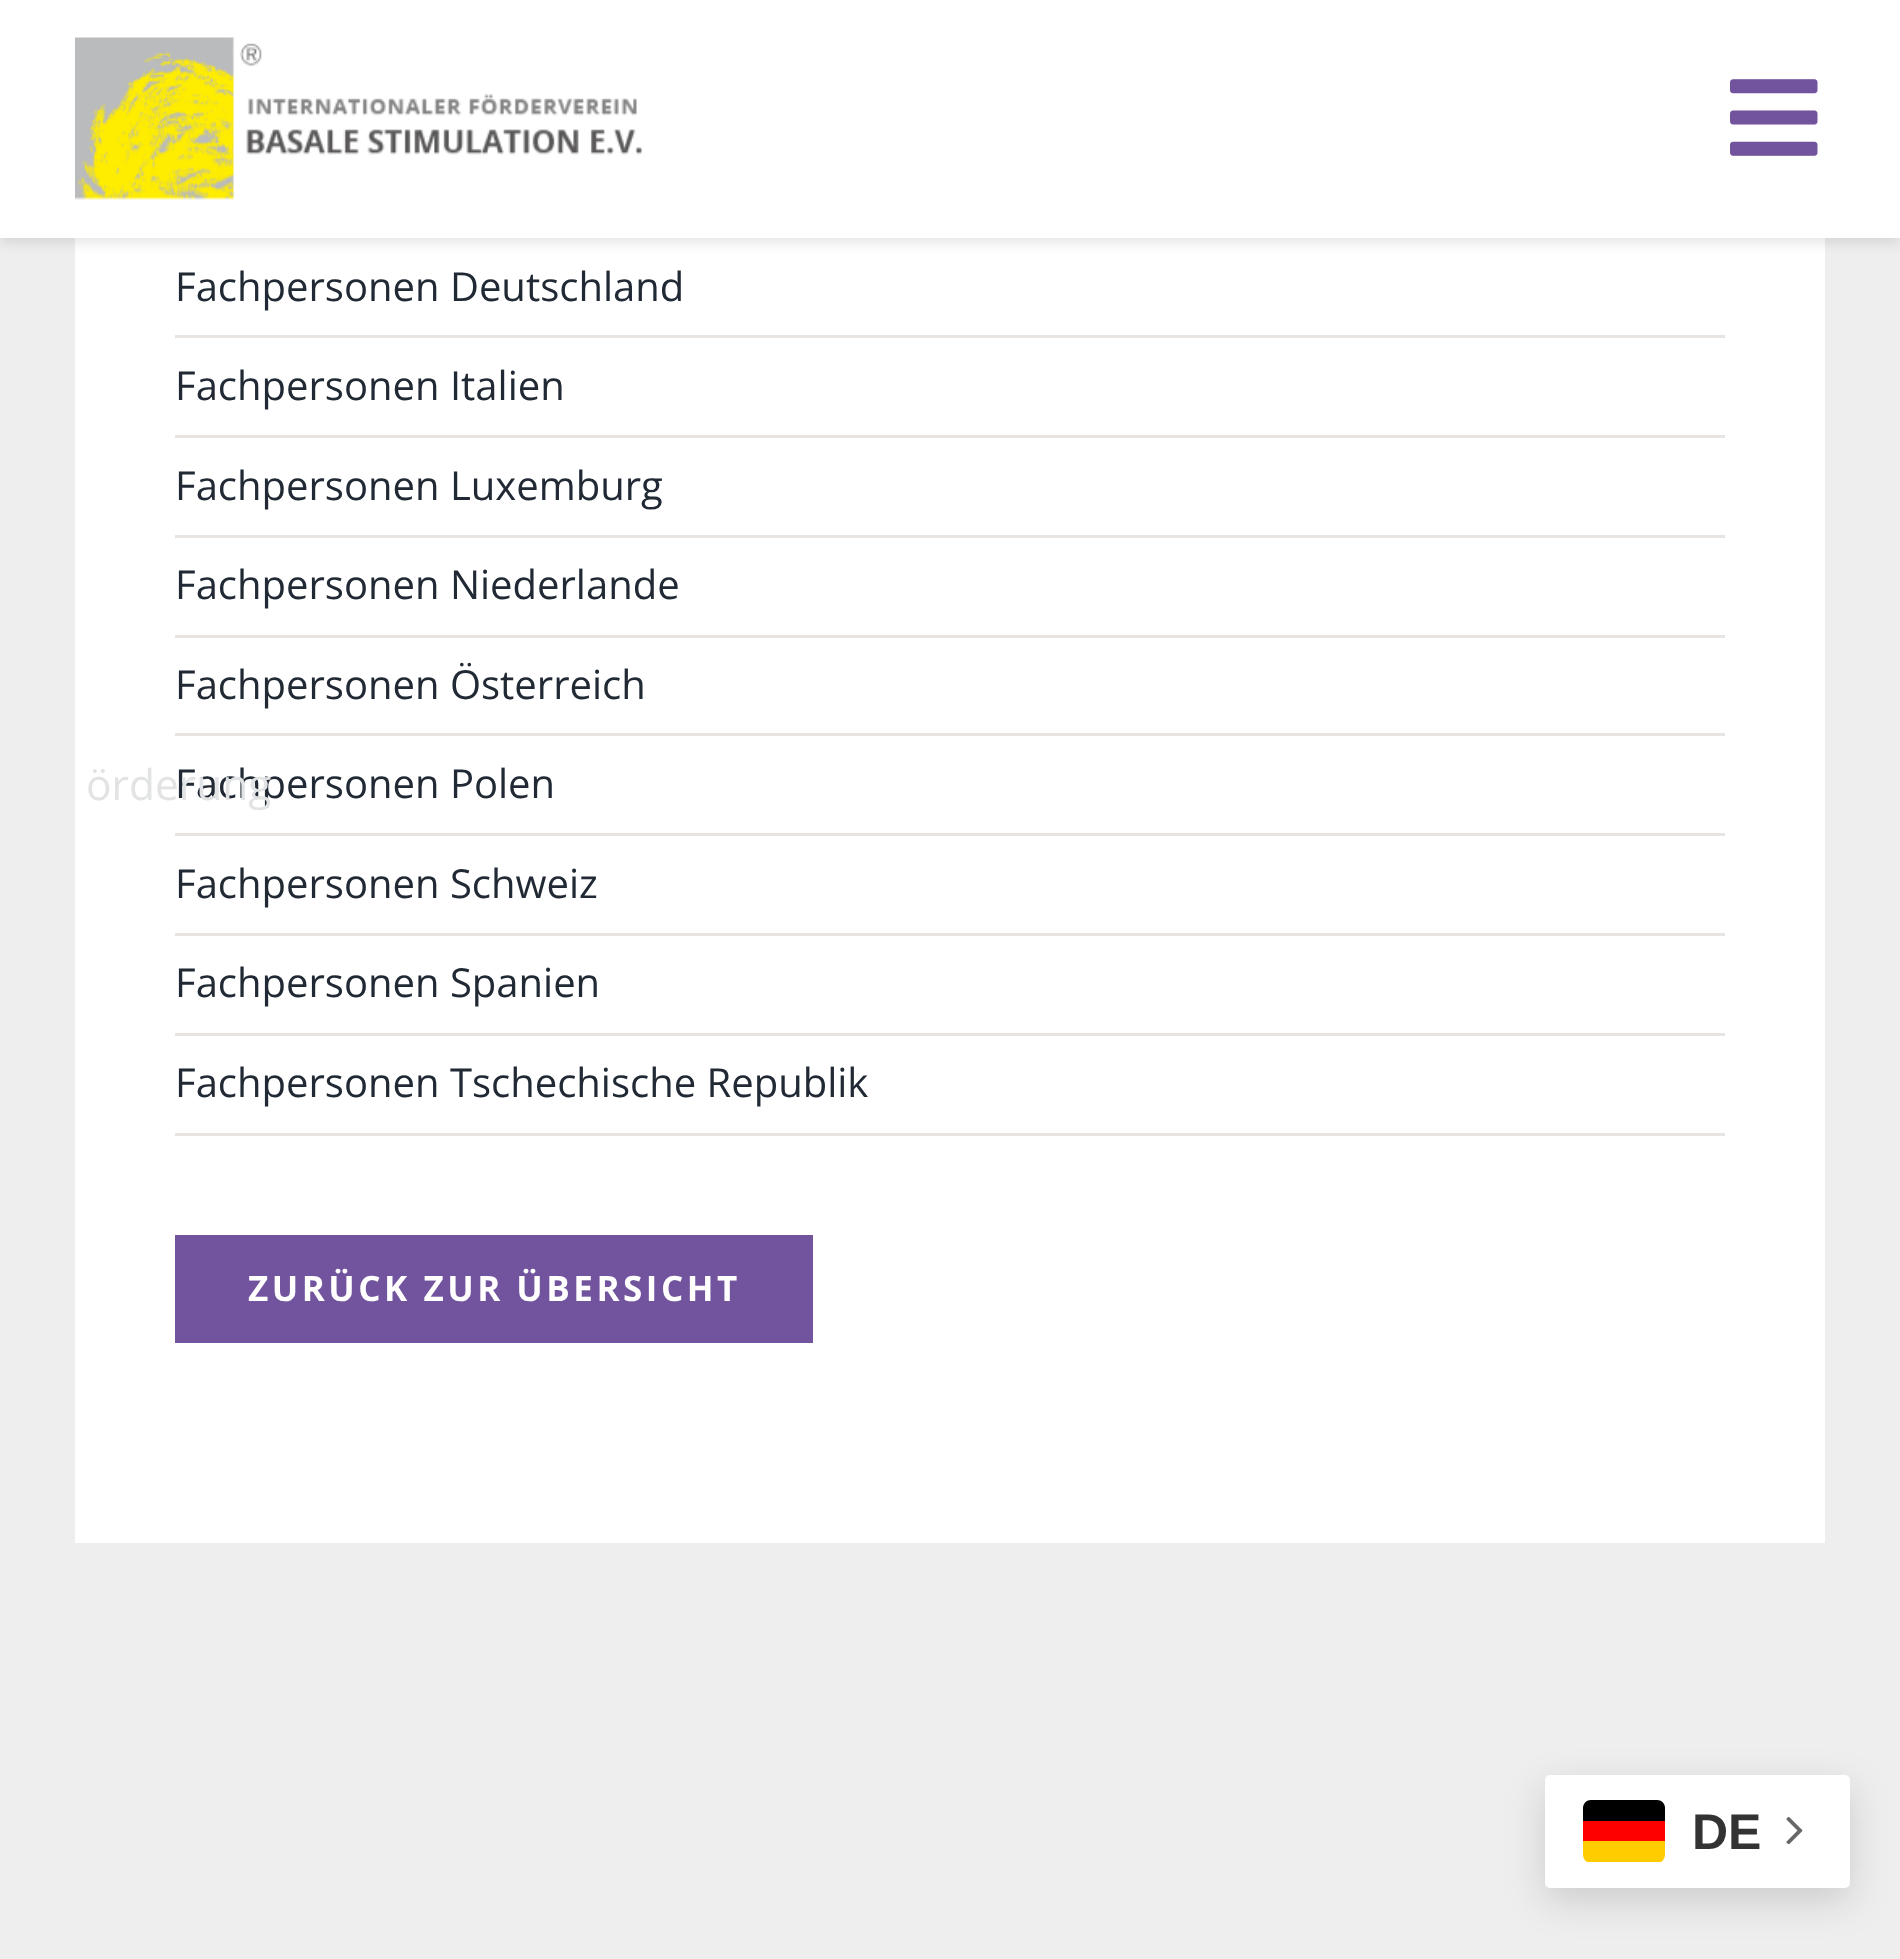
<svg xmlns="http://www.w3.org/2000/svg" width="1900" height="1959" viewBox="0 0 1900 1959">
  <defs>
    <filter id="blur1" x="-50%" y="-200%" width="200%" height="500%"><feGaussianBlur stdDeviation="6"/></filter>
    <filter id="blur2" x="-50%" y="-200%" width="200%" height="500%"><feGaussianBlur stdDeviation="19"/></filter>
    <clipPath id="clip1"><rect x="1583" y="1800" width="82" height="63" rx="8"/></clipPath>
  </defs>
  <rect width="100%" height="100%" fill="#eeeeee"/>
  <rect x="75" y="238" width="1750" height="1305" fill="#ffffff"/>
  <text x="175" y="301" font-family="Open Sans" font-size="40" fill="#212934">Fachpersonen Deutschland</text>
  <rect x="175" y="335" width="1550" height="3" fill="#e7e4e2"/>
  <text x="175" y="400" font-family="Open Sans" font-size="40" fill="#212934">Fachpersonen Italien</text>
  <rect x="175" y="435" width="1550" height="3" fill="#e7e4e2"/>
  <text x="175" y="500" font-family="Open Sans" font-size="40" fill="#212934">Fachpersonen Luxemburg</text>
  <rect x="175" y="535" width="1550" height="3" fill="#e7e4e2"/>
  <text x="175" y="599" font-family="Open Sans" font-size="40" fill="#212934">Fachpersonen Niederlande</text>
  <rect x="175" y="635" width="1550" height="3" fill="#e7e4e2"/>
  <text x="175" y="699" font-family="Open Sans" font-size="40" fill="#212934">Fachpersonen Österreich</text>
  <rect x="175" y="733" width="1550" height="3" fill="#e7e4e2"/>
  <text x="175" y="798" font-family="Open Sans" font-size="40" fill="#212934">Fachpersonen Polen</text>
  <rect x="175" y="833" width="1550" height="3" fill="#e7e4e2"/>
  <text x="175" y="898" font-family="Open Sans" font-size="40" fill="#212934">Fachpersonen Schweiz</text>
  <rect x="175" y="933" width="1550" height="3" fill="#e7e4e2"/>
  <text x="175" y="997" font-family="Open Sans" font-size="40" fill="#212934">Fachpersonen Spanien</text>
  <rect x="175" y="1033" width="1550" height="3" fill="#e7e4e2"/>
  <text x="175" y="1097" font-family="Open Sans" font-size="40" fill="#212934">Fachpersonen Tschechische Republik</text>
  <rect x="175" y="1133" width="1550" height="3" fill="#e7e4e2"/>
  <rect x="175" y="1235" width="638" height="108" fill="#72549e"/>
  <text x="248" y="1301" font-family="Open Sans" font-size="35" font-weight="bold" letter-spacing="3.5" fill="#ffffff">ZURÜCK ZUR ÜBERSICHT</text>
  <rect x="0" y="5" width="1900" height="238" fill="#212121" fill-opacity="0.1" filter="url(#blur1)"/>
  <rect x="0" y="0" width="1900" height="238" fill="#ffffff"/>
  <image x="75" y="37" width="568" height="163" href="img1.png"/>
  <image x="1730" y="79" width="88" height="77" href="img2.png"/>
  <text x="86" y="800" font-family="Open Sans" font-size="42.5" fill="#e2e3e4">örderung</text>
  <rect x="1545" y="1788" width="305" height="112" rx="5" fill="#000000" fill-opacity="0.15" filter="url(#blur2)"/>
  <rect x="1545" y="1775" width="305" height="113" rx="5" fill="#ffffff"/>
  <g clip-path="url(#clip1)">
    <rect x="1583" y="1841" width="82" height="21" fill="#ffcc00"/>
  </g>
  <path d="M1591 1800H1657C1661.5 1800 1665 1803.5 1665 1808V1821H1583V1808C1583 1803.5 1586.5 1800 1591 1800Z" fill="#000000"/>
  <rect x="1583" y="1821" width="82" height="20" fill="#ff0000"/>
  <text x="1692" y="1849" font-family="Liberation Sans" font-size="50" font-weight="bold" fill="#333333">DE</text>
  <image x="1786" y="1817" width="17" height="28" href="img3.png"/>
</svg>
